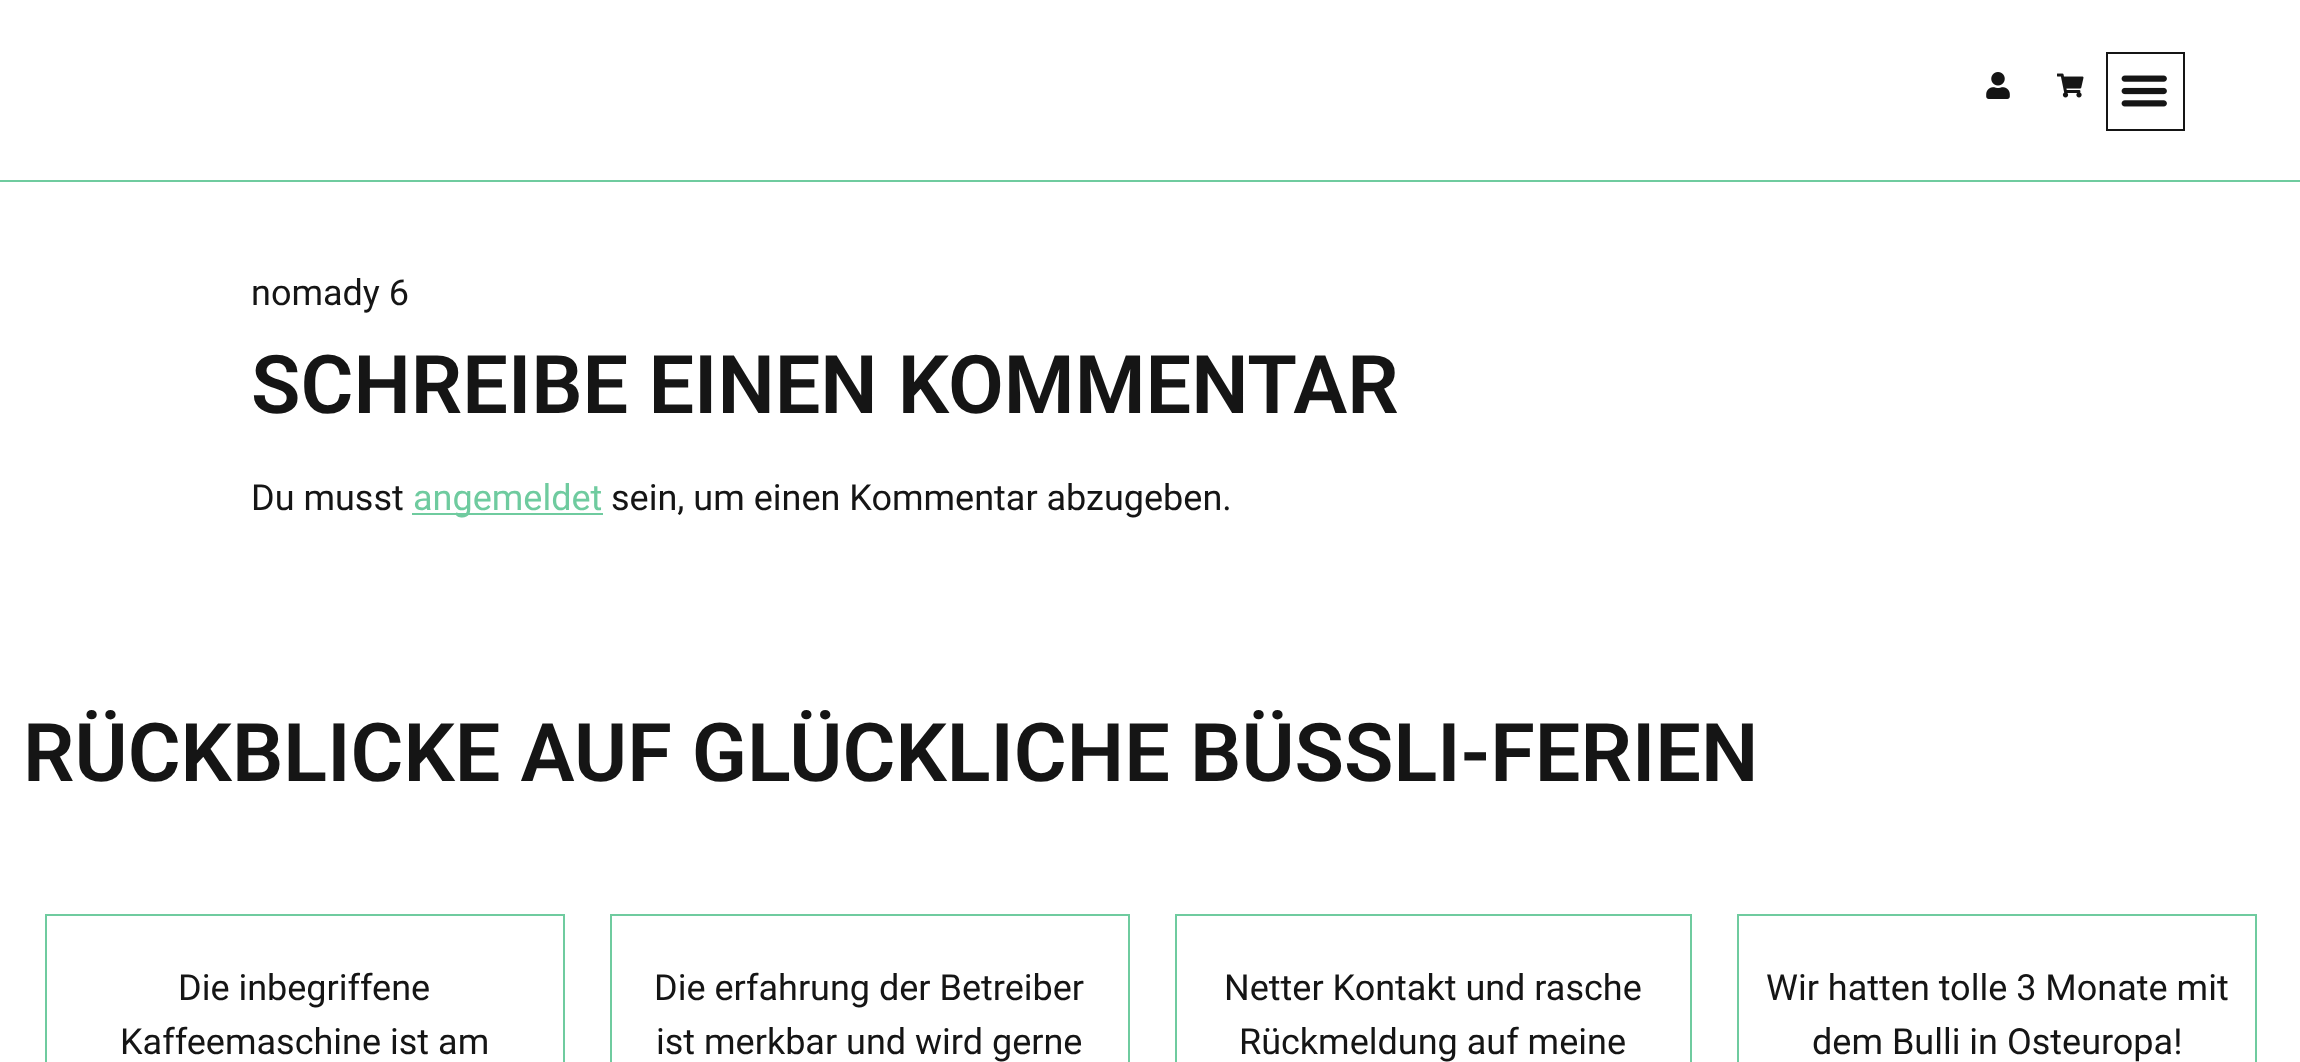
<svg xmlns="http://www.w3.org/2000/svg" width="2300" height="1062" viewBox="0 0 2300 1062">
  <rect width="100%" height="100%" fill="#ffffff"/>
  <rect x="0" y="180" width="2300" height="2" fill="#6fcb9f"/>
  <image x="1986" y="72" width="24" height="27" href="img1.png"/>
  <image x="2057" y="73" width="27" height="25" href="img2.png"/>
  <rect x="2107" y="53" width="77" height="77" fill="none" stroke="#151515" stroke-width="2"/>
  <image x="2121" y="75" width="46" height="32" href="img3.png"/>
  <text x="251" y="305" font-family="Roboto" font-size="36" fill="#151515">nomady 6</text>
  <text x="251" y="413" font-family="Roboto" font-size="81" font-weight="600" fill="#151515">SCHREIBE EINEN KOMMENTAR</text>
  <text x="251" y="510" font-family="Roboto" font-size="36" fill="#151515">Du musst</text>
  <rect x="412" y="513" width="191" height="2" fill="#6fcb9f"/>
  <text x="413" y="510" font-family="Roboto" font-size="36" fill="#6fcb9f">angemeldet</text>
  <text x="611" y="510" font-family="Roboto" font-size="36" fill="#151515">sein, um einen Kommentar abzugeben.</text>
  <text x="23" y="781" font-family="Roboto" font-size="81" font-weight="600" fill="#151515">RÜCKBLICKE AUF GLÜCKLICHE BÜSSLI-FERIEN</text>
  <rect x="46" y="915" width="518" height="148" fill="none" stroke="#6fcb9f" stroke-width="2"/>
  <text x="178" y="1000" font-family="Roboto" font-size="36" fill="#151515">Die inbegriffene</text>
  <text x="120" y="1054" font-family="Roboto" font-size="36" fill="#151515">Kaffeemaschine ist am</text>
  <rect x="611" y="915" width="518" height="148" fill="none" stroke="#6fcb9f" stroke-width="2"/>
  <text x="654" y="1000" font-family="Roboto" font-size="36" fill="#151515">Die erfahrung der Betreiber</text>
  <text x="656" y="1054" font-family="Roboto" font-size="36" fill="#151515">ist merkbar und wird gerne</text>
  <rect x="1176" y="915" width="515" height="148" fill="none" stroke="#6fcb9f" stroke-width="2"/>
  <text x="1224" y="1000" font-family="Roboto" font-size="36" fill="#151515">Netter Kontakt und rasche</text>
  <text x="1239" y="1054" font-family="Roboto" font-size="36" fill="#151515">Rückmeldung auf meine</text>
  <rect x="1738" y="915" width="518" height="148" fill="none" stroke="#6fcb9f" stroke-width="2"/>
  <text x="1766" y="1000" font-family="Roboto" font-size="36" fill="#151515">Wir hatten tolle 3 Monate mit</text>
  <text x="1812" y="1054" font-family="Roboto" font-size="36" fill="#151515">dem Bulli in Osteuropa!</text>
</svg>
